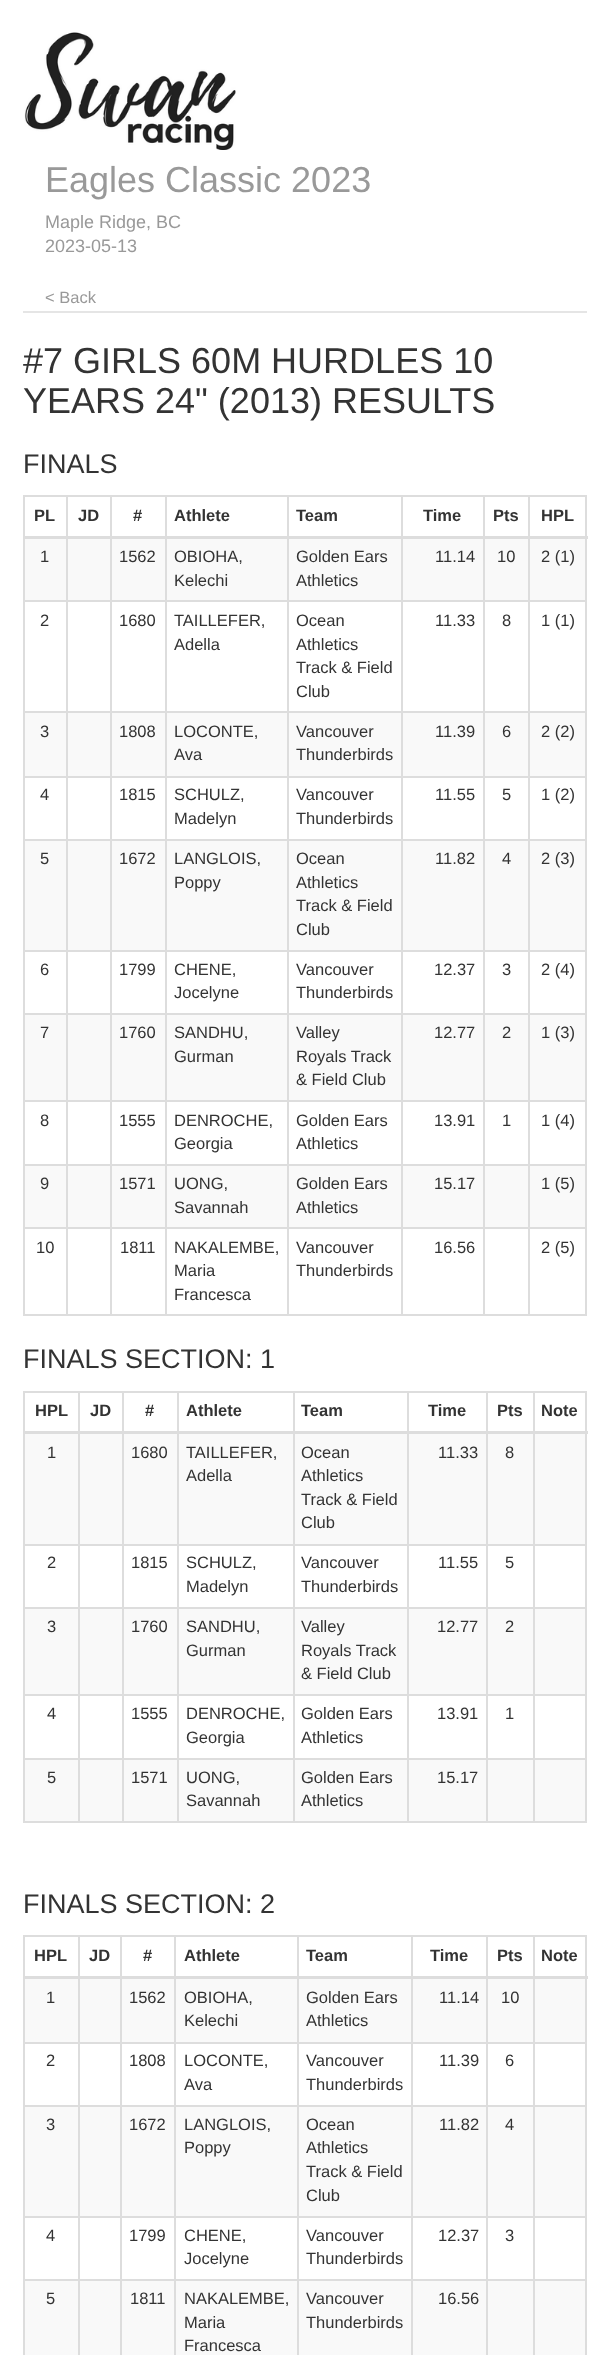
<svg xmlns="http://www.w3.org/2000/svg" width="609" height="2355" viewBox="0 0 609 2355">
  <rect width="100%" height="100%" fill="#ffffff"/>
  <rect x="23" y="311" width="564" height="2" fill="#e5e5e5"/>
  <image x="24" y="32" width="212" height="118" href="img1.png"/>
  <text x="45" y="192" font-family="Liberation Sans" font-size="36" fill="#999999">Eagles Classic 2023</text>
  <text x="45" y="228" font-family="Liberation Sans" font-size="18" fill="#999999">Maple Ridge, BC</text>
  <text x="45" y="252" font-family="Liberation Sans" font-size="18" fill="#999999">2023-05-13</text>
  <text x="45" y="303" font-family="Liberation Sans" font-size="16.5" fill="#999999">&lt; Back</text>
  <text x="23" y="373" font-family="Liberation Sans" font-size="36" fill="#333333">#7 GIRLS 60M HURDLES 10</text>
  <text x="23" y="413" font-family="Liberation Sans" font-size="36" fill="#333333">YEARS 24" (2013) RESULTS</text>
  <text x="23" y="473" font-family="Liberation Sans" font-size="27" fill="#333333">FINALS</text>
  <rect x="23" y="495" width="564" height="2" fill="#dddddd"/>
  <rect x="585" y="495" width="2" height="821" fill="#dddddd"/>
  <rect x="23" y="1314" width="564" height="2" fill="#dddddd"/>
  <rect x="23" y="495" width="2" height="821" fill="#dddddd"/>
  <text x="34" y="521" font-family="Liberation Sans" font-size="16.5" font-weight="bold" fill="#333333">PL</text>
  <text x="78" y="521" font-family="Liberation Sans" font-size="16.5" font-weight="bold" fill="#333333">JD</text>
  <text x="133" y="521" font-family="Liberation Sans" font-size="16.5" font-weight="bold" fill="#333333">#</text>
  <text x="174" y="521" font-family="Liberation Sans" font-size="16.5" font-weight="bold" fill="#333333">Athlete</text>
  <text x="296" y="521" font-family="Liberation Sans" font-size="16.5" font-weight="bold" fill="#333333">Team</text>
  <text x="423" y="521" font-family="Liberation Sans" font-size="16.5" font-weight="bold" fill="#333333">Time</text>
  <text x="493" y="521" font-family="Liberation Sans" font-size="16.5" font-weight="bold" fill="#333333">Pts</text>
  <rect x="528" y="600" width="59" height="2" fill="#dddddd"/>
  <rect x="528" y="711" width="59" height="2" fill="#dddddd"/>
  <rect x="528" y="776" width="59" height="2" fill="#dddddd"/>
  <rect x="528" y="839" width="59" height="2" fill="#dddddd"/>
  <rect x="528" y="950" width="59" height="2" fill="#dddddd"/>
  <rect x="528" y="1013" width="59" height="2" fill="#dddddd"/>
  <rect x="528" y="1100" width="59" height="2" fill="#dddddd"/>
  <rect x="528" y="1164" width="59" height="2" fill="#dddddd"/>
  <rect x="528" y="1227" width="59" height="2" fill="#dddddd"/>
  <rect x="528" y="1227" width="2" height="89" fill="#dddddd"/>
  <rect x="483" y="1227" width="47" height="2" fill="#dddddd"/>
  <rect x="528" y="1164" width="2" height="65" fill="#dddddd"/>
  <rect x="483" y="1164" width="47" height="2" fill="#dddddd"/>
  <rect x="528" y="1100" width="2" height="66" fill="#dddddd"/>
  <rect x="483" y="1100" width="47" height="2" fill="#dddddd"/>
  <rect x="528" y="1013" width="2" height="88" fill="#dddddd"/>
  <rect x="483" y="1013" width="47" height="2" fill="#dddddd"/>
  <rect x="528" y="950" width="2" height="64" fill="#dddddd"/>
  <rect x="483" y="950" width="47" height="2" fill="#dddddd"/>
  <rect x="528" y="839" width="2" height="112" fill="#dddddd"/>
  <rect x="483" y="839" width="47" height="2" fill="#dddddd"/>
  <rect x="528" y="776" width="2" height="64" fill="#dddddd"/>
  <rect x="483" y="776" width="47" height="2" fill="#dddddd"/>
  <rect x="528" y="711" width="2" height="66" fill="#dddddd"/>
  <rect x="483" y="711" width="47" height="2" fill="#dddddd"/>
  <rect x="528" y="600" width="2" height="113" fill="#dddddd"/>
  <rect x="483" y="600" width="47" height="2" fill="#dddddd"/>
  <rect x="483" y="1227" width="2" height="89" fill="#dddddd"/>
  <rect x="401" y="1227" width="84" height="2" fill="#dddddd"/>
  <rect x="483" y="1164" width="2" height="65" fill="#dddddd"/>
  <rect x="401" y="1164" width="84" height="2" fill="#dddddd"/>
  <rect x="483" y="1100" width="2" height="66" fill="#dddddd"/>
  <rect x="401" y="1100" width="84" height="2" fill="#dddddd"/>
  <rect x="483" y="1013" width="2" height="88" fill="#dddddd"/>
  <rect x="401" y="1013" width="84" height="2" fill="#dddddd"/>
  <rect x="483" y="950" width="2" height="64" fill="#dddddd"/>
  <rect x="401" y="950" width="84" height="2" fill="#dddddd"/>
  <rect x="483" y="839" width="2" height="112" fill="#dddddd"/>
  <rect x="401" y="839" width="84" height="2" fill="#dddddd"/>
  <rect x="483" y="776" width="2" height="64" fill="#dddddd"/>
  <rect x="401" y="776" width="84" height="2" fill="#dddddd"/>
  <rect x="483" y="711" width="2" height="66" fill="#dddddd"/>
  <rect x="401" y="711" width="84" height="2" fill="#dddddd"/>
  <rect x="483" y="600" width="2" height="113" fill="#dddddd"/>
  <rect x="401" y="600" width="84" height="2" fill="#dddddd"/>
  <rect x="401" y="1227" width="2" height="89" fill="#dddddd"/>
  <rect x="287" y="1227" width="115" height="2" fill="#dddddd"/>
  <rect x="401" y="1164" width="2" height="65" fill="#dddddd"/>
  <rect x="287" y="1164" width="115" height="2" fill="#dddddd"/>
  <rect x="401" y="1100" width="2" height="66" fill="#dddddd"/>
  <rect x="287" y="1100" width="115" height="2" fill="#dddddd"/>
  <rect x="401" y="1013" width="2" height="88" fill="#dddddd"/>
  <rect x="287" y="1013" width="115" height="2" fill="#dddddd"/>
  <rect x="401" y="950" width="2" height="64" fill="#dddddd"/>
  <rect x="287" y="950" width="115" height="2" fill="#dddddd"/>
  <rect x="401" y="839" width="2" height="112" fill="#dddddd"/>
  <rect x="287" y="839" width="115" height="2" fill="#dddddd"/>
  <rect x="401" y="776" width="2" height="64" fill="#dddddd"/>
  <rect x="287" y="776" width="115" height="2" fill="#dddddd"/>
  <rect x="401" y="711" width="2" height="66" fill="#dddddd"/>
  <rect x="287" y="711" width="115" height="2" fill="#dddddd"/>
  <rect x="401" y="600" width="2" height="113" fill="#dddddd"/>
  <rect x="287" y="600" width="115" height="2" fill="#dddddd"/>
  <rect x="287" y="1227" width="2" height="89" fill="#dddddd"/>
  <rect x="165" y="1227" width="123" height="2" fill="#dddddd"/>
  <rect x="287" y="1164" width="2" height="65" fill="#dddddd"/>
  <rect x="165" y="1164" width="123" height="2" fill="#dddddd"/>
  <rect x="287" y="1100" width="2" height="66" fill="#dddddd"/>
  <rect x="165" y="1100" width="123" height="2" fill="#dddddd"/>
  <rect x="287" y="1013" width="2" height="88" fill="#dddddd"/>
  <rect x="165" y="1013" width="123" height="2" fill="#dddddd"/>
  <rect x="287" y="950" width="2" height="64" fill="#dddddd"/>
  <rect x="165" y="950" width="123" height="2" fill="#dddddd"/>
  <rect x="287" y="839" width="2" height="112" fill="#dddddd"/>
  <rect x="165" y="839" width="123" height="2" fill="#dddddd"/>
  <rect x="287" y="776" width="2" height="64" fill="#dddddd"/>
  <rect x="165" y="776" width="123" height="2" fill="#dddddd"/>
  <rect x="287" y="711" width="2" height="66" fill="#dddddd"/>
  <rect x="165" y="711" width="123" height="2" fill="#dddddd"/>
  <rect x="287" y="600" width="2" height="113" fill="#dddddd"/>
  <rect x="165" y="600" width="123" height="2" fill="#dddddd"/>
  <rect x="165" y="1227" width="2" height="89" fill="#dddddd"/>
  <rect x="110" y="1227" width="57" height="2" fill="#dddddd"/>
  <rect x="165" y="1164" width="2" height="65" fill="#dddddd"/>
  <rect x="110" y="1164" width="57" height="2" fill="#dddddd"/>
  <rect x="165" y="1100" width="2" height="66" fill="#dddddd"/>
  <rect x="110" y="1100" width="57" height="2" fill="#dddddd"/>
  <rect x="165" y="1013" width="2" height="88" fill="#dddddd"/>
  <rect x="110" y="1013" width="57" height="2" fill="#dddddd"/>
  <rect x="165" y="950" width="2" height="64" fill="#dddddd"/>
  <rect x="110" y="950" width="57" height="2" fill="#dddddd"/>
  <rect x="165" y="839" width="2" height="112" fill="#dddddd"/>
  <rect x="110" y="839" width="57" height="2" fill="#dddddd"/>
  <rect x="165" y="776" width="2" height="64" fill="#dddddd"/>
  <rect x="110" y="776" width="57" height="2" fill="#dddddd"/>
  <rect x="165" y="711" width="2" height="66" fill="#dddddd"/>
  <rect x="110" y="711" width="57" height="2" fill="#dddddd"/>
  <rect x="165" y="600" width="2" height="113" fill="#dddddd"/>
  <rect x="110" y="600" width="57" height="2" fill="#dddddd"/>
  <rect x="110" y="1227" width="2" height="89" fill="#dddddd"/>
  <rect x="66" y="1227" width="45" height="2" fill="#dddddd"/>
  <rect x="110" y="1164" width="2" height="65" fill="#dddddd"/>
  <rect x="66" y="1164" width="45" height="2" fill="#dddddd"/>
  <rect x="110" y="1100" width="2" height="66" fill="#dddddd"/>
  <rect x="66" y="1100" width="45" height="2" fill="#dddddd"/>
  <rect x="110" y="1013" width="2" height="88" fill="#dddddd"/>
  <rect x="66" y="1013" width="45" height="2" fill="#dddddd"/>
  <rect x="110" y="950" width="2" height="64" fill="#dddddd"/>
  <rect x="66" y="950" width="45" height="2" fill="#dddddd"/>
  <rect x="110" y="839" width="2" height="112" fill="#dddddd"/>
  <rect x="66" y="839" width="45" height="2" fill="#dddddd"/>
  <rect x="110" y="776" width="2" height="64" fill="#dddddd"/>
  <rect x="66" y="776" width="45" height="2" fill="#dddddd"/>
  <rect x="110" y="711" width="2" height="66" fill="#dddddd"/>
  <rect x="66" y="711" width="45" height="2" fill="#dddddd"/>
  <rect x="110" y="600" width="2" height="113" fill="#dddddd"/>
  <rect x="66" y="600" width="45" height="2" fill="#dddddd"/>
  <rect x="66" y="1227" width="2" height="89" fill="#dddddd"/>
  <rect x="23" y="1227" width="45" height="2" fill="#dddddd"/>
  <rect x="66" y="1164" width="2" height="65" fill="#dddddd"/>
  <rect x="23" y="1164" width="45" height="2" fill="#dddddd"/>
  <rect x="66" y="1100" width="2" height="66" fill="#dddddd"/>
  <rect x="23" y="1100" width="45" height="2" fill="#dddddd"/>
  <rect x="66" y="1013" width="2" height="88" fill="#dddddd"/>
  <rect x="23" y="1013" width="45" height="2" fill="#dddddd"/>
  <rect x="66" y="950" width="2" height="64" fill="#dddddd"/>
  <rect x="23" y="950" width="45" height="2" fill="#dddddd"/>
  <rect x="66" y="839" width="2" height="112" fill="#dddddd"/>
  <rect x="23" y="839" width="45" height="2" fill="#dddddd"/>
  <rect x="66" y="776" width="2" height="64" fill="#dddddd"/>
  <rect x="23" y="776" width="45" height="2" fill="#dddddd"/>
  <rect x="66" y="711" width="2" height="66" fill="#dddddd"/>
  <rect x="23" y="711" width="45" height="2" fill="#dddddd"/>
  <rect x="66" y="600" width="2" height="113" fill="#dddddd"/>
  <rect x="23" y="600" width="45" height="2" fill="#dddddd"/>
  <rect x="66" y="495" width="2" height="107" fill="#dddddd"/>
  <rect x="110" y="495" width="2" height="107" fill="#dddddd"/>
  <rect x="165" y="495" width="2" height="107" fill="#dddddd"/>
  <rect x="287" y="495" width="2" height="107" fill="#dddddd"/>
  <rect x="401" y="495" width="2" height="107" fill="#dddddd"/>
  <rect x="483" y="495" width="2" height="107" fill="#dddddd"/>
  <rect x="528" y="495" width="2" height="107" fill="#dddddd"/>
  <rect x="23" y="536" width="565" height="3" fill="#dddddd"/>
  <text x="541" y="521" font-family="Liberation Sans" font-size="16.5" font-weight="bold" fill="#333333">HPL</text>
  <rect x="25" y="539" width="41" height="61" fill="#f9f9f9"/>
  <text x="40" y="562" font-family="Liberation Sans" font-size="16.5" fill="#333333">1</text>
  <rect x="68" y="539" width="42" height="61" fill="#f9f9f9"/>
  <rect x="112" y="539" width="53" height="61" fill="#f9f9f9"/>
  <text x="119" y="562" font-family="Liberation Sans" font-size="16.5" fill="#333333">1562</text>
  <rect x="167" y="539" width="120" height="61" fill="#f9f9f9"/>
  <text x="174" y="562" font-family="Liberation Sans" font-size="16.5" fill="#333333">OBIOHA,</text>
  <text x="174" y="586" font-family="Liberation Sans" font-size="16.5" fill="#333333">Kelechi</text>
  <rect x="289" y="539" width="112" height="61" fill="#f9f9f9"/>
  <text x="296" y="562" font-family="Liberation Sans" font-size="16.5" fill="#333333">Golden Ears</text>
  <text x="296" y="586" font-family="Liberation Sans" font-size="16.5" fill="#333333">Athletics</text>
  <rect x="403" y="539" width="80" height="61" fill="#f9f9f9"/>
  <text x="435" y="562" font-family="Liberation Sans" font-size="16.5" fill="#333333">11.14</text>
  <rect x="485" y="539" width="43" height="61" fill="#f9f9f9"/>
  <text x="497" y="562" font-family="Liberation Sans" font-size="16.5" fill="#333333">10</text>
  <rect x="530" y="539" width="55" height="61" fill="#f9f9f9"/>
  <text x="541" y="562" font-family="Liberation Sans" font-size="16.5" fill="#333333">2 (1)</text>
  <text x="40" y="626" font-family="Liberation Sans" font-size="16.5" fill="#333333">2</text>
  <text x="119" y="626" font-family="Liberation Sans" font-size="16.5" fill="#333333">1680</text>
  <text x="174" y="626" font-family="Liberation Sans" font-size="16.5" fill="#333333">TAILLEFER,</text>
  <text x="174" y="650" font-family="Liberation Sans" font-size="16.5" fill="#333333">Adella</text>
  <text x="296" y="626" font-family="Liberation Sans" font-size="16.5" fill="#333333">Ocean</text>
  <text x="296" y="650" font-family="Liberation Sans" font-size="16.5" fill="#333333">Athletics</text>
  <text x="296" y="673" font-family="Liberation Sans" font-size="16.5" fill="#333333">Track &amp; Field</text>
  <text x="296" y="697" font-family="Liberation Sans" font-size="16.5" fill="#333333">Club</text>
  <text x="435" y="626" font-family="Liberation Sans" font-size="16.5" fill="#333333">11.33</text>
  <text x="502" y="626" font-family="Liberation Sans" font-size="16.5" fill="#333333">8</text>
  <text x="541" y="626" font-family="Liberation Sans" font-size="16.5" fill="#333333">1 (1)</text>
  <rect x="25" y="713" width="41" height="63" fill="#f9f9f9"/>
  <text x="40" y="737" font-family="Liberation Sans" font-size="16.5" fill="#333333">3</text>
  <rect x="68" y="713" width="42" height="63" fill="#f9f9f9"/>
  <rect x="112" y="713" width="53" height="63" fill="#f9f9f9"/>
  <text x="119" y="737" font-family="Liberation Sans" font-size="16.5" fill="#333333">1808</text>
  <rect x="167" y="713" width="120" height="63" fill="#f9f9f9"/>
  <text x="174" y="737" font-family="Liberation Sans" font-size="16.5" fill="#333333">LOCONTE,</text>
  <text x="174" y="760" font-family="Liberation Sans" font-size="16.5" fill="#333333">Ava</text>
  <rect x="289" y="713" width="112" height="63" fill="#f9f9f9"/>
  <text x="296" y="737" font-family="Liberation Sans" font-size="16.5" fill="#333333">Vancouver</text>
  <text x="296" y="760" font-family="Liberation Sans" font-size="16.5" fill="#333333">Thunderbirds</text>
  <rect x="403" y="713" width="80" height="63" fill="#f9f9f9"/>
  <text x="435" y="737" font-family="Liberation Sans" font-size="16.5" fill="#333333">11.39</text>
  <rect x="485" y="713" width="43" height="63" fill="#f9f9f9"/>
  <text x="502" y="737" font-family="Liberation Sans" font-size="16.5" fill="#333333">6</text>
  <rect x="530" y="713" width="55" height="63" fill="#f9f9f9"/>
  <text x="541" y="737" font-family="Liberation Sans" font-size="16.5" fill="#333333">2 (2)</text>
  <text x="40" y="800" font-family="Liberation Sans" font-size="16.5" fill="#333333">4</text>
  <text x="119" y="800" font-family="Liberation Sans" font-size="16.5" fill="#333333">1815</text>
  <text x="174" y="800" font-family="Liberation Sans" font-size="16.5" fill="#333333">SCHULZ,</text>
  <text x="174" y="824" font-family="Liberation Sans" font-size="16.5" fill="#333333">Madelyn</text>
  <text x="296" y="800" font-family="Liberation Sans" font-size="16.5" fill="#333333">Vancouver</text>
  <text x="296" y="824" font-family="Liberation Sans" font-size="16.5" fill="#333333">Thunderbirds</text>
  <text x="435" y="800" font-family="Liberation Sans" font-size="16.5" fill="#333333">11.55</text>
  <text x="502" y="800" font-family="Liberation Sans" font-size="16.5" fill="#333333">5</text>
  <text x="541" y="800" font-family="Liberation Sans" font-size="16.5" fill="#333333">1 (2)</text>
  <rect x="25" y="841" width="41" height="109" fill="#f9f9f9"/>
  <text x="40" y="864" font-family="Liberation Sans" font-size="16.5" fill="#333333">5</text>
  <rect x="68" y="841" width="42" height="109" fill="#f9f9f9"/>
  <rect x="112" y="841" width="53" height="109" fill="#f9f9f9"/>
  <text x="119" y="864" font-family="Liberation Sans" font-size="16.5" fill="#333333">1672</text>
  <rect x="167" y="841" width="120" height="109" fill="#f9f9f9"/>
  <text x="174" y="864" font-family="Liberation Sans" font-size="16.5" fill="#333333">LANGLOIS,</text>
  <text x="174" y="888" font-family="Liberation Sans" font-size="16.5" fill="#333333">Poppy</text>
  <rect x="289" y="841" width="112" height="109" fill="#f9f9f9"/>
  <text x="296" y="864" font-family="Liberation Sans" font-size="16.5" fill="#333333">Ocean</text>
  <text x="296" y="888" font-family="Liberation Sans" font-size="16.5" fill="#333333">Athletics</text>
  <text x="296" y="911" font-family="Liberation Sans" font-size="16.5" fill="#333333">Track &amp; Field</text>
  <text x="296" y="935" font-family="Liberation Sans" font-size="16.5" fill="#333333">Club</text>
  <rect x="403" y="841" width="80" height="109" fill="#f9f9f9"/>
  <text x="435" y="864" font-family="Liberation Sans" font-size="16.5" fill="#333333">11.82</text>
  <rect x="485" y="841" width="43" height="109" fill="#f9f9f9"/>
  <text x="502" y="864" font-family="Liberation Sans" font-size="16.5" fill="#333333">4</text>
  <rect x="530" y="841" width="55" height="109" fill="#f9f9f9"/>
  <text x="541" y="864" font-family="Liberation Sans" font-size="16.5" fill="#333333">2 (3)</text>
  <text x="40" y="975" font-family="Liberation Sans" font-size="16.5" fill="#333333">6</text>
  <text x="119" y="975" font-family="Liberation Sans" font-size="16.5" fill="#333333">1799</text>
  <text x="174" y="975" font-family="Liberation Sans" font-size="16.5" fill="#333333">CHENE,</text>
  <text x="174" y="998" font-family="Liberation Sans" font-size="16.5" fill="#333333">Jocelyne</text>
  <text x="296" y="975" font-family="Liberation Sans" font-size="16.5" fill="#333333">Vancouver</text>
  <text x="296" y="998" font-family="Liberation Sans" font-size="16.5" fill="#333333">Thunderbirds</text>
  <text x="434" y="975" font-family="Liberation Sans" font-size="16.5" fill="#333333">12.37</text>
  <text x="502" y="975" font-family="Liberation Sans" font-size="16.5" fill="#333333">3</text>
  <text x="541" y="975" font-family="Liberation Sans" font-size="16.5" fill="#333333">2 (4)</text>
  <rect x="25" y="1015" width="41" height="85" fill="#f9f9f9"/>
  <text x="40" y="1038" font-family="Liberation Sans" font-size="16.5" fill="#333333">7</text>
  <rect x="68" y="1015" width="42" height="85" fill="#f9f9f9"/>
  <rect x="112" y="1015" width="53" height="85" fill="#f9f9f9"/>
  <text x="119" y="1038" font-family="Liberation Sans" font-size="16.5" fill="#333333">1760</text>
  <rect x="167" y="1015" width="120" height="85" fill="#f9f9f9"/>
  <text x="174" y="1038" font-family="Liberation Sans" font-size="16.5" fill="#333333">SANDHU,</text>
  <text x="174" y="1062" font-family="Liberation Sans" font-size="16.5" fill="#333333">Gurman</text>
  <rect x="289" y="1015" width="112" height="85" fill="#f9f9f9"/>
  <text x="296" y="1038" font-family="Liberation Sans" font-size="16.5" fill="#333333">Valley</text>
  <text x="296" y="1062" font-family="Liberation Sans" font-size="16.5" fill="#333333">Royals Track</text>
  <text x="296" y="1085" font-family="Liberation Sans" font-size="16.5" fill="#333333">&amp; Field Club</text>
  <rect x="403" y="1015" width="80" height="85" fill="#f9f9f9"/>
  <text x="434" y="1038" font-family="Liberation Sans" font-size="16.5" fill="#333333">12.77</text>
  <rect x="485" y="1015" width="43" height="85" fill="#f9f9f9"/>
  <text x="502" y="1038" font-family="Liberation Sans" font-size="16.5" fill="#333333">2</text>
  <rect x="530" y="1015" width="55" height="85" fill="#f9f9f9"/>
  <text x="541" y="1038" font-family="Liberation Sans" font-size="16.5" fill="#333333">1 (3)</text>
  <text x="40" y="1126" font-family="Liberation Sans" font-size="16.5" fill="#333333">8</text>
  <text x="119" y="1126" font-family="Liberation Sans" font-size="16.5" fill="#333333">1555</text>
  <text x="174" y="1126" font-family="Liberation Sans" font-size="16.5" fill="#333333">DENROCHE,</text>
  <text x="174" y="1149" font-family="Liberation Sans" font-size="16.5" fill="#333333">Georgia</text>
  <text x="296" y="1126" font-family="Liberation Sans" font-size="16.5" fill="#333333">Golden Ears</text>
  <text x="296" y="1149" font-family="Liberation Sans" font-size="16.5" fill="#333333">Athletics</text>
  <text x="434" y="1126" font-family="Liberation Sans" font-size="16.5" fill="#333333">13.91</text>
  <text x="502" y="1126" font-family="Liberation Sans" font-size="16.5" fill="#333333">1</text>
  <text x="541" y="1126" font-family="Liberation Sans" font-size="16.5" fill="#333333">1 (4)</text>
  <rect x="25" y="1166" width="41" height="61" fill="#f9f9f9"/>
  <text x="40" y="1189" font-family="Liberation Sans" font-size="16.5" fill="#333333">9</text>
  <rect x="68" y="1166" width="42" height="61" fill="#f9f9f9"/>
  <rect x="112" y="1166" width="53" height="61" fill="#f9f9f9"/>
  <text x="119" y="1189" font-family="Liberation Sans" font-size="16.5" fill="#333333">1571</text>
  <rect x="167" y="1166" width="120" height="61" fill="#f9f9f9"/>
  <text x="174" y="1189" font-family="Liberation Sans" font-size="16.5" fill="#333333">UONG,</text>
  <text x="174" y="1213" font-family="Liberation Sans" font-size="16.5" fill="#333333">Savannah</text>
  <rect x="289" y="1166" width="112" height="61" fill="#f9f9f9"/>
  <text x="296" y="1189" font-family="Liberation Sans" font-size="16.5" fill="#333333">Golden Ears</text>
  <text x="296" y="1213" font-family="Liberation Sans" font-size="16.5" fill="#333333">Athletics</text>
  <rect x="403" y="1166" width="80" height="61" fill="#f9f9f9"/>
  <text x="434" y="1189" font-family="Liberation Sans" font-size="16.5" fill="#333333">15.17</text>
  <rect x="485" y="1166" width="43" height="61" fill="#f9f9f9"/>
  <rect x="530" y="1166" width="55" height="61" fill="#f9f9f9"/>
  <text x="541" y="1189" font-family="Liberation Sans" font-size="16.5" fill="#333333">1 (5)</text>
  <text x="36" y="1253" font-family="Liberation Sans" font-size="16.5" fill="#333333">10</text>
  <text x="120" y="1253" font-family="Liberation Sans" font-size="16.5" fill="#333333">1811</text>
  <text x="174" y="1253" font-family="Liberation Sans" font-size="16.5" fill="#333333">NAKALEMBE,</text>
  <text x="174" y="1276" font-family="Liberation Sans" font-size="16.5" fill="#333333">Maria</text>
  <text x="174" y="1300" font-family="Liberation Sans" font-size="16.5" fill="#333333">Francesca</text>
  <text x="296" y="1253" font-family="Liberation Sans" font-size="16.5" fill="#333333">Vancouver</text>
  <text x="296" y="1276" font-family="Liberation Sans" font-size="16.5" fill="#333333">Thunderbirds</text>
  <text x="434" y="1253" font-family="Liberation Sans" font-size="16.5" fill="#333333">16.56</text>
  <text x="541" y="1253" font-family="Liberation Sans" font-size="16.5" fill="#333333">2 (5)</text>
  <text x="23" y="1368" font-family="Liberation Sans" font-size="27" fill="#333333">FINALS SECTION: 1</text>
  <rect x="23" y="1391" width="564" height="2" fill="#dddddd"/>
  <rect x="585" y="1391" width="2" height="432" fill="#dddddd"/>
  <rect x="23" y="1821" width="564" height="2" fill="#dddddd"/>
  <rect x="23" y="1391" width="2" height="432" fill="#dddddd"/>
  <text x="35" y="1416" font-family="Liberation Sans" font-size="16.5" font-weight="bold" fill="#333333">HPL</text>
  <text x="90" y="1416" font-family="Liberation Sans" font-size="16.5" font-weight="bold" fill="#333333">JD</text>
  <text x="145" y="1416" font-family="Liberation Sans" font-size="16.5" font-weight="bold" fill="#333333">#</text>
  <text x="186" y="1416" font-family="Liberation Sans" font-size="16.5" font-weight="bold" fill="#333333">Athlete</text>
  <text x="301" y="1416" font-family="Liberation Sans" font-size="16.5" font-weight="bold" fill="#333333">Team</text>
  <text x="428" y="1416" font-family="Liberation Sans" font-size="16.5" font-weight="bold" fill="#333333">Time</text>
  <text x="497" y="1416" font-family="Liberation Sans" font-size="16.5" font-weight="bold" fill="#333333">Pts</text>
  <rect x="533" y="1544" width="54" height="2" fill="#dddddd"/>
  <rect x="533" y="1607" width="54" height="2" fill="#dddddd"/>
  <rect x="533" y="1694" width="54" height="2" fill="#dddddd"/>
  <rect x="533" y="1758" width="54" height="2" fill="#dddddd"/>
  <rect x="533" y="1758" width="2" height="65" fill="#dddddd"/>
  <rect x="486" y="1758" width="48" height="2" fill="#dddddd"/>
  <rect x="533" y="1694" width="2" height="66" fill="#dddddd"/>
  <rect x="486" y="1694" width="48" height="2" fill="#dddddd"/>
  <rect x="533" y="1607" width="2" height="88" fill="#dddddd"/>
  <rect x="486" y="1607" width="48" height="2" fill="#dddddd"/>
  <rect x="533" y="1544" width="2" height="64" fill="#dddddd"/>
  <rect x="486" y="1544" width="48" height="2" fill="#dddddd"/>
  <rect x="486" y="1758" width="2" height="65" fill="#dddddd"/>
  <rect x="407" y="1758" width="81" height="2" fill="#dddddd"/>
  <rect x="486" y="1694" width="2" height="66" fill="#dddddd"/>
  <rect x="407" y="1694" width="81" height="2" fill="#dddddd"/>
  <rect x="486" y="1607" width="2" height="88" fill="#dddddd"/>
  <rect x="407" y="1607" width="81" height="2" fill="#dddddd"/>
  <rect x="486" y="1544" width="2" height="64" fill="#dddddd"/>
  <rect x="407" y="1544" width="81" height="2" fill="#dddddd"/>
  <rect x="407" y="1758" width="2" height="65" fill="#dddddd"/>
  <rect x="293" y="1758" width="115" height="2" fill="#dddddd"/>
  <rect x="407" y="1694" width="2" height="66" fill="#dddddd"/>
  <rect x="293" y="1694" width="115" height="2" fill="#dddddd"/>
  <rect x="407" y="1607" width="2" height="88" fill="#dddddd"/>
  <rect x="293" y="1607" width="115" height="2" fill="#dddddd"/>
  <rect x="407" y="1544" width="2" height="64" fill="#dddddd"/>
  <rect x="293" y="1544" width="115" height="2" fill="#dddddd"/>
  <rect x="293" y="1758" width="2" height="65" fill="#dddddd"/>
  <rect x="177" y="1758" width="117" height="2" fill="#dddddd"/>
  <rect x="293" y="1694" width="2" height="66" fill="#dddddd"/>
  <rect x="177" y="1694" width="117" height="2" fill="#dddddd"/>
  <rect x="293" y="1607" width="2" height="88" fill="#dddddd"/>
  <rect x="177" y="1607" width="117" height="2" fill="#dddddd"/>
  <rect x="293" y="1544" width="2" height="64" fill="#dddddd"/>
  <rect x="177" y="1544" width="117" height="2" fill="#dddddd"/>
  <rect x="177" y="1758" width="2" height="65" fill="#dddddd"/>
  <rect x="122" y="1758" width="57" height="2" fill="#dddddd"/>
  <rect x="177" y="1694" width="2" height="66" fill="#dddddd"/>
  <rect x="122" y="1694" width="57" height="2" fill="#dddddd"/>
  <rect x="177" y="1607" width="2" height="88" fill="#dddddd"/>
  <rect x="122" y="1607" width="57" height="2" fill="#dddddd"/>
  <rect x="177" y="1544" width="2" height="64" fill="#dddddd"/>
  <rect x="122" y="1544" width="57" height="2" fill="#dddddd"/>
  <rect x="122" y="1758" width="2" height="65" fill="#dddddd"/>
  <rect x="78" y="1758" width="45" height="2" fill="#dddddd"/>
  <rect x="122" y="1694" width="2" height="66" fill="#dddddd"/>
  <rect x="78" y="1694" width="45" height="2" fill="#dddddd"/>
  <rect x="122" y="1607" width="2" height="88" fill="#dddddd"/>
  <rect x="78" y="1607" width="45" height="2" fill="#dddddd"/>
  <rect x="122" y="1544" width="2" height="64" fill="#dddddd"/>
  <rect x="78" y="1544" width="45" height="2" fill="#dddddd"/>
  <rect x="78" y="1758" width="2" height="65" fill="#dddddd"/>
  <rect x="23" y="1758" width="57" height="2" fill="#dddddd"/>
  <rect x="78" y="1694" width="2" height="66" fill="#dddddd"/>
  <rect x="23" y="1694" width="57" height="2" fill="#dddddd"/>
  <rect x="78" y="1607" width="2" height="88" fill="#dddddd"/>
  <rect x="23" y="1607" width="57" height="2" fill="#dddddd"/>
  <rect x="78" y="1544" width="2" height="64" fill="#dddddd"/>
  <rect x="23" y="1544" width="57" height="2" fill="#dddddd"/>
  <rect x="78" y="1391" width="2" height="154" fill="#dddddd"/>
  <rect x="122" y="1391" width="2" height="154" fill="#dddddd"/>
  <rect x="177" y="1391" width="2" height="154" fill="#dddddd"/>
  <rect x="293" y="1391" width="2" height="154" fill="#dddddd"/>
  <rect x="407" y="1391" width="2" height="154" fill="#dddddd"/>
  <rect x="486" y="1391" width="2" height="154" fill="#dddddd"/>
  <rect x="533" y="1391" width="2" height="154" fill="#dddddd"/>
  <rect x="23" y="1431" width="565" height="3" fill="#dddddd"/>
  <text x="541" y="1416" font-family="Liberation Sans" font-size="16.5" font-weight="bold" fill="#333333">Note</text>
  <rect x="25" y="1434" width="53" height="110" fill="#f9f9f9"/>
  <text x="47" y="1458" font-family="Liberation Sans" font-size="16.5" fill="#333333">1</text>
  <rect x="80" y="1434" width="42" height="110" fill="#f9f9f9"/>
  <rect x="124" y="1434" width="53" height="110" fill="#f9f9f9"/>
  <text x="131" y="1458" font-family="Liberation Sans" font-size="16.5" fill="#333333">1680</text>
  <rect x="179" y="1434" width="114" height="110" fill="#f9f9f9"/>
  <text x="186" y="1458" font-family="Liberation Sans" font-size="16.5" fill="#333333">TAILLEFER,</text>
  <text x="186" y="1481" font-family="Liberation Sans" font-size="16.5" fill="#333333">Adella</text>
  <rect x="295" y="1434" width="112" height="110" fill="#f9f9f9"/>
  <text x="301" y="1458" font-family="Liberation Sans" font-size="16.5" fill="#333333">Ocean</text>
  <text x="301" y="1481" font-family="Liberation Sans" font-size="16.5" fill="#333333">Athletics</text>
  <text x="301" y="1505" font-family="Liberation Sans" font-size="16.5" fill="#333333">Track &amp; Field</text>
  <text x="301" y="1528" font-family="Liberation Sans" font-size="16.5" fill="#333333">Club</text>
  <rect x="409" y="1434" width="77" height="110" fill="#f9f9f9"/>
  <text x="438" y="1458" font-family="Liberation Sans" font-size="16.5" fill="#333333">11.33</text>
  <rect x="488" y="1434" width="45" height="110" fill="#f9f9f9"/>
  <text x="505" y="1458" font-family="Liberation Sans" font-size="16.5" fill="#333333">8</text>
  <rect x="535" y="1434" width="50" height="110" fill="#f9f9f9"/>
  <text x="47" y="1568" font-family="Liberation Sans" font-size="16.5" fill="#333333">2</text>
  <text x="131" y="1568" font-family="Liberation Sans" font-size="16.5" fill="#333333">1815</text>
  <text x="186" y="1568" font-family="Liberation Sans" font-size="16.5" fill="#333333">SCHULZ,</text>
  <text x="186" y="1592" font-family="Liberation Sans" font-size="16.5" fill="#333333">Madelyn</text>
  <text x="301" y="1568" font-family="Liberation Sans" font-size="16.5" fill="#333333">Vancouver</text>
  <text x="301" y="1592" font-family="Liberation Sans" font-size="16.5" fill="#333333">Thunderbirds</text>
  <text x="438" y="1568" font-family="Liberation Sans" font-size="16.5" fill="#333333">11.55</text>
  <text x="505" y="1568" font-family="Liberation Sans" font-size="16.5" fill="#333333">5</text>
  <rect x="25" y="1609" width="53" height="85" fill="#f9f9f9"/>
  <text x="47" y="1632" font-family="Liberation Sans" font-size="16.5" fill="#333333">3</text>
  <rect x="80" y="1609" width="42" height="85" fill="#f9f9f9"/>
  <rect x="124" y="1609" width="53" height="85" fill="#f9f9f9"/>
  <text x="131" y="1632" font-family="Liberation Sans" font-size="16.5" fill="#333333">1760</text>
  <rect x="179" y="1609" width="114" height="85" fill="#f9f9f9"/>
  <text x="186" y="1632" font-family="Liberation Sans" font-size="16.5" fill="#333333">SANDHU,</text>
  <text x="186" y="1656" font-family="Liberation Sans" font-size="16.5" fill="#333333">Gurman</text>
  <rect x="295" y="1609" width="112" height="85" fill="#f9f9f9"/>
  <text x="301" y="1632" font-family="Liberation Sans" font-size="16.5" fill="#333333">Valley</text>
  <text x="301" y="1656" font-family="Liberation Sans" font-size="16.5" fill="#333333">Royals Track</text>
  <text x="301" y="1679" font-family="Liberation Sans" font-size="16.5" fill="#333333">&amp; Field Club</text>
  <rect x="409" y="1609" width="77" height="85" fill="#f9f9f9"/>
  <text x="437" y="1632" font-family="Liberation Sans" font-size="16.5" fill="#333333">12.77</text>
  <rect x="488" y="1609" width="45" height="85" fill="#f9f9f9"/>
  <text x="505" y="1632" font-family="Liberation Sans" font-size="16.5" fill="#333333">2</text>
  <rect x="535" y="1609" width="50" height="85" fill="#f9f9f9"/>
  <text x="47" y="1719" font-family="Liberation Sans" font-size="16.5" fill="#333333">4</text>
  <text x="131" y="1719" font-family="Liberation Sans" font-size="16.5" fill="#333333">1555</text>
  <text x="186" y="1719" font-family="Liberation Sans" font-size="16.5" fill="#333333">DENROCHE,</text>
  <text x="186" y="1743" font-family="Liberation Sans" font-size="16.5" fill="#333333">Georgia</text>
  <text x="301" y="1719" font-family="Liberation Sans" font-size="16.5" fill="#333333">Golden Ears</text>
  <text x="301" y="1743" font-family="Liberation Sans" font-size="16.5" fill="#333333">Athletics</text>
  <text x="437" y="1719" font-family="Liberation Sans" font-size="16.5" fill="#333333">13.91</text>
  <text x="505" y="1719" font-family="Liberation Sans" font-size="16.5" fill="#333333">1</text>
  <rect x="25" y="1760" width="53" height="61" fill="#f9f9f9"/>
  <text x="47" y="1783" font-family="Liberation Sans" font-size="16.5" fill="#333333">5</text>
  <rect x="80" y="1760" width="42" height="61" fill="#f9f9f9"/>
  <rect x="124" y="1760" width="53" height="61" fill="#f9f9f9"/>
  <text x="131" y="1783" font-family="Liberation Sans" font-size="16.5" fill="#333333">1571</text>
  <rect x="179" y="1760" width="114" height="61" fill="#f9f9f9"/>
  <text x="186" y="1783" font-family="Liberation Sans" font-size="16.5" fill="#333333">UONG,</text>
  <text x="186" y="1806" font-family="Liberation Sans" font-size="16.5" fill="#333333">Savannah</text>
  <rect x="295" y="1760" width="112" height="61" fill="#f9f9f9"/>
  <text x="301" y="1783" font-family="Liberation Sans" font-size="16.5" fill="#333333">Golden Ears</text>
  <text x="301" y="1806" font-family="Liberation Sans" font-size="16.5" fill="#333333">Athletics</text>
  <rect x="409" y="1760" width="77" height="61" fill="#f9f9f9"/>
  <text x="437" y="1783" font-family="Liberation Sans" font-size="16.5" fill="#333333">15.17</text>
  <rect x="488" y="1760" width="45" height="61" fill="#f9f9f9"/>
  <rect x="535" y="1760" width="50" height="61" fill="#f9f9f9"/>
  <text x="23" y="1913" font-family="Liberation Sans" font-size="27" fill="#333333">FINALS SECTION: 2</text>
  <rect x="23" y="1935" width="564" height="2" fill="#dddddd"/>
  <rect x="585" y="1935" width="2" height="420" fill="#dddddd"/>
  <rect x="23" y="1935" width="2" height="420" fill="#dddddd"/>
  <text x="34" y="1961" font-family="Liberation Sans" font-size="16.5" font-weight="bold" fill="#333333">HPL</text>
  <text x="89" y="1961" font-family="Liberation Sans" font-size="16.5" font-weight="bold" fill="#333333">JD</text>
  <text x="143" y="1961" font-family="Liberation Sans" font-size="16.5" font-weight="bold" fill="#333333">#</text>
  <text x="184" y="1961" font-family="Liberation Sans" font-size="16.5" font-weight="bold" fill="#333333">Athlete</text>
  <text x="306" y="1961" font-family="Liberation Sans" font-size="16.5" font-weight="bold" fill="#333333">Team</text>
  <text x="430" y="1961" font-family="Liberation Sans" font-size="16.5" font-weight="bold" fill="#333333">Time</text>
  <text x="497" y="1961" font-family="Liberation Sans" font-size="16.5" font-weight="bold" fill="#333333">Pts</text>
  <rect x="533" y="2042" width="54" height="2" fill="#dddddd"/>
  <rect x="533" y="2105" width="54" height="2" fill="#dddddd"/>
  <rect x="533" y="2216" width="54" height="2" fill="#dddddd"/>
  <rect x="533" y="2279" width="54" height="2" fill="#dddddd"/>
  <rect x="533" y="2279" width="2" height="76" fill="#dddddd"/>
  <rect x="486" y="2279" width="48" height="2" fill="#dddddd"/>
  <rect x="533" y="2216" width="2" height="64" fill="#dddddd"/>
  <rect x="486" y="2216" width="48" height="2" fill="#dddddd"/>
  <rect x="533" y="2105" width="2" height="112" fill="#dddddd"/>
  <rect x="486" y="2105" width="48" height="2" fill="#dddddd"/>
  <rect x="533" y="2042" width="2" height="64" fill="#dddddd"/>
  <rect x="486" y="2042" width="48" height="2" fill="#dddddd"/>
  <rect x="486" y="2279" width="2" height="76" fill="#dddddd"/>
  <rect x="411" y="2279" width="77" height="2" fill="#dddddd"/>
  <rect x="486" y="2216" width="2" height="64" fill="#dddddd"/>
  <rect x="411" y="2216" width="77" height="2" fill="#dddddd"/>
  <rect x="486" y="2105" width="2" height="112" fill="#dddddd"/>
  <rect x="411" y="2105" width="77" height="2" fill="#dddddd"/>
  <rect x="486" y="2042" width="2" height="64" fill="#dddddd"/>
  <rect x="411" y="2042" width="77" height="2" fill="#dddddd"/>
  <rect x="411" y="2279" width="2" height="76" fill="#dddddd"/>
  <rect x="297" y="2279" width="116" height="2" fill="#dddddd"/>
  <rect x="411" y="2216" width="2" height="64" fill="#dddddd"/>
  <rect x="297" y="2216" width="116" height="2" fill="#dddddd"/>
  <rect x="411" y="2105" width="2" height="112" fill="#dddddd"/>
  <rect x="297" y="2105" width="116" height="2" fill="#dddddd"/>
  <rect x="411" y="2042" width="2" height="64" fill="#dddddd"/>
  <rect x="297" y="2042" width="116" height="2" fill="#dddddd"/>
  <rect x="297" y="2279" width="2" height="76" fill="#dddddd"/>
  <rect x="174" y="2279" width="125" height="2" fill="#dddddd"/>
  <rect x="297" y="2216" width="2" height="64" fill="#dddddd"/>
  <rect x="174" y="2216" width="125" height="2" fill="#dddddd"/>
  <rect x="297" y="2105" width="2" height="112" fill="#dddddd"/>
  <rect x="174" y="2105" width="125" height="2" fill="#dddddd"/>
  <rect x="297" y="2042" width="2" height="64" fill="#dddddd"/>
  <rect x="174" y="2042" width="125" height="2" fill="#dddddd"/>
  <rect x="174" y="2279" width="2" height="76" fill="#dddddd"/>
  <rect x="120" y="2279" width="56" height="2" fill="#dddddd"/>
  <rect x="174" y="2216" width="2" height="64" fill="#dddddd"/>
  <rect x="120" y="2216" width="56" height="2" fill="#dddddd"/>
  <rect x="174" y="2105" width="2" height="112" fill="#dddddd"/>
  <rect x="120" y="2105" width="56" height="2" fill="#dddddd"/>
  <rect x="174" y="2042" width="2" height="64" fill="#dddddd"/>
  <rect x="120" y="2042" width="56" height="2" fill="#dddddd"/>
  <rect x="120" y="2279" width="2" height="76" fill="#dddddd"/>
  <rect x="78" y="2279" width="44" height="2" fill="#dddddd"/>
  <rect x="120" y="2216" width="2" height="64" fill="#dddddd"/>
  <rect x="78" y="2216" width="44" height="2" fill="#dddddd"/>
  <rect x="120" y="2105" width="2" height="112" fill="#dddddd"/>
  <rect x="78" y="2105" width="44" height="2" fill="#dddddd"/>
  <rect x="120" y="2042" width="2" height="64" fill="#dddddd"/>
  <rect x="78" y="2042" width="44" height="2" fill="#dddddd"/>
  <rect x="78" y="2279" width="2" height="76" fill="#dddddd"/>
  <rect x="23" y="2279" width="57" height="2" fill="#dddddd"/>
  <rect x="78" y="2216" width="2" height="64" fill="#dddddd"/>
  <rect x="23" y="2216" width="57" height="2" fill="#dddddd"/>
  <rect x="78" y="2105" width="2" height="112" fill="#dddddd"/>
  <rect x="23" y="2105" width="57" height="2" fill="#dddddd"/>
  <rect x="78" y="2042" width="2" height="64" fill="#dddddd"/>
  <rect x="23" y="2042" width="57" height="2" fill="#dddddd"/>
  <rect x="78" y="1935" width="2" height="108" fill="#dddddd"/>
  <rect x="120" y="1935" width="2" height="108" fill="#dddddd"/>
  <rect x="174" y="1935" width="2" height="108" fill="#dddddd"/>
  <rect x="297" y="1935" width="2" height="108" fill="#dddddd"/>
  <rect x="411" y="1935" width="2" height="108" fill="#dddddd"/>
  <rect x="486" y="1935" width="2" height="108" fill="#dddddd"/>
  <rect x="533" y="1935" width="2" height="108" fill="#dddddd"/>
  <rect x="23" y="1976" width="565" height="3" fill="#dddddd"/>
  <text x="541" y="1961" font-family="Liberation Sans" font-size="16.5" font-weight="bold" fill="#333333">Note</text>
  <rect x="25" y="1979" width="53" height="63" fill="#f9f9f9"/>
  <text x="46" y="2003" font-family="Liberation Sans" font-size="16.5" fill="#333333">1</text>
  <rect x="80" y="1979" width="40" height="63" fill="#f9f9f9"/>
  <rect x="122" y="1979" width="52" height="63" fill="#f9f9f9"/>
  <text x="129" y="2003" font-family="Liberation Sans" font-size="16.5" fill="#333333">1562</text>
  <rect x="176" y="1979" width="121" height="63" fill="#f9f9f9"/>
  <text x="184" y="2003" font-family="Liberation Sans" font-size="16.5" fill="#333333">OBIOHA,</text>
  <text x="184" y="2026" font-family="Liberation Sans" font-size="16.5" fill="#333333">Kelechi</text>
  <rect x="299" y="1979" width="112" height="63" fill="#f9f9f9"/>
  <text x="306" y="2003" font-family="Liberation Sans" font-size="16.5" fill="#333333">Golden Ears</text>
  <text x="306" y="2026" font-family="Liberation Sans" font-size="16.5" fill="#333333">Athletics</text>
  <rect x="413" y="1979" width="73" height="63" fill="#f9f9f9"/>
  <text x="439" y="2003" font-family="Liberation Sans" font-size="16.5" fill="#333333">11.14</text>
  <rect x="488" y="1979" width="45" height="63" fill="#f9f9f9"/>
  <text x="501" y="2003" font-family="Liberation Sans" font-size="16.5" fill="#333333">10</text>
  <rect x="535" y="1979" width="50" height="63" fill="#f9f9f9"/>
  <text x="46" y="2066" font-family="Liberation Sans" font-size="16.5" fill="#333333">2</text>
  <text x="129" y="2066" font-family="Liberation Sans" font-size="16.5" fill="#333333">1808</text>
  <text x="184" y="2066" font-family="Liberation Sans" font-size="16.5" fill="#333333">LOCONTE,</text>
  <text x="184" y="2090" font-family="Liberation Sans" font-size="16.5" fill="#333333">Ava</text>
  <text x="306" y="2066" font-family="Liberation Sans" font-size="16.5" fill="#333333">Vancouver</text>
  <text x="306" y="2090" font-family="Liberation Sans" font-size="16.5" fill="#333333">Thunderbirds</text>
  <text x="439" y="2066" font-family="Liberation Sans" font-size="16.5" fill="#333333">11.39</text>
  <text x="505" y="2066" font-family="Liberation Sans" font-size="16.5" fill="#333333">6</text>
  <rect x="25" y="2107" width="53" height="109" fill="#f9f9f9"/>
  <text x="46" y="2130" font-family="Liberation Sans" font-size="16.5" fill="#333333">3</text>
  <rect x="80" y="2107" width="40" height="109" fill="#f9f9f9"/>
  <rect x="122" y="2107" width="52" height="109" fill="#f9f9f9"/>
  <text x="129" y="2130" font-family="Liberation Sans" font-size="16.5" fill="#333333">1672</text>
  <rect x="176" y="2107" width="121" height="109" fill="#f9f9f9"/>
  <text x="184" y="2130" font-family="Liberation Sans" font-size="16.5" fill="#333333">LANGLOIS,</text>
  <text x="184" y="2153" font-family="Liberation Sans" font-size="16.5" fill="#333333">Poppy</text>
  <rect x="299" y="2107" width="112" height="109" fill="#f9f9f9"/>
  <text x="306" y="2130" font-family="Liberation Sans" font-size="16.5" fill="#333333">Ocean</text>
  <text x="306" y="2153" font-family="Liberation Sans" font-size="16.5" fill="#333333">Athletics</text>
  <text x="306" y="2177" font-family="Liberation Sans" font-size="16.5" fill="#333333">Track &amp; Field</text>
  <text x="306" y="2201" font-family="Liberation Sans" font-size="16.5" fill="#333333">Club</text>
  <rect x="413" y="2107" width="73" height="109" fill="#f9f9f9"/>
  <text x="439" y="2130" font-family="Liberation Sans" font-size="16.5" fill="#333333">11.82</text>
  <rect x="488" y="2107" width="45" height="109" fill="#f9f9f9"/>
  <text x="505" y="2130" font-family="Liberation Sans" font-size="16.5" fill="#333333">4</text>
  <rect x="535" y="2107" width="50" height="109" fill="#f9f9f9"/>
  <text x="46" y="2241" font-family="Liberation Sans" font-size="16.5" fill="#333333">4</text>
  <text x="129" y="2241" font-family="Liberation Sans" font-size="16.5" fill="#333333">1799</text>
  <text x="184" y="2241" font-family="Liberation Sans" font-size="16.5" fill="#333333">CHENE,</text>
  <text x="184" y="2264" font-family="Liberation Sans" font-size="16.5" fill="#333333">Jocelyne</text>
  <text x="306" y="2241" font-family="Liberation Sans" font-size="16.5" fill="#333333">Vancouver</text>
  <text x="306" y="2264" font-family="Liberation Sans" font-size="16.5" fill="#333333">Thunderbirds</text>
  <text x="438" y="2241" font-family="Liberation Sans" font-size="16.5" fill="#333333">12.37</text>
  <text x="505" y="2241" font-family="Liberation Sans" font-size="16.5" fill="#333333">3</text>
  <rect x="25" y="2281" width="53" height="74" fill="#f9f9f9"/>
  <text x="46" y="2304" font-family="Liberation Sans" font-size="16.5" fill="#333333">5</text>
  <rect x="80" y="2281" width="40" height="74" fill="#f9f9f9"/>
  <rect x="122" y="2281" width="52" height="74" fill="#f9f9f9"/>
  <text x="130" y="2304" font-family="Liberation Sans" font-size="16.5" fill="#333333">1811</text>
  <rect x="176" y="2281" width="121" height="74" fill="#f9f9f9"/>
  <text x="184" y="2304" font-family="Liberation Sans" font-size="16.5" fill="#333333">NAKALEMBE,</text>
  <text x="184" y="2328" font-family="Liberation Sans" font-size="16.5" fill="#333333">Maria</text>
  <text x="184" y="2351" font-family="Liberation Sans" font-size="16.5" fill="#333333">Francesca</text>
  <rect x="299" y="2281" width="112" height="74" fill="#f9f9f9"/>
  <text x="306" y="2304" font-family="Liberation Sans" font-size="16.5" fill="#333333">Vancouver</text>
  <text x="306" y="2328" font-family="Liberation Sans" font-size="16.5" fill="#333333">Thunderbirds</text>
  <rect x="413" y="2281" width="73" height="74" fill="#f9f9f9"/>
  <text x="438" y="2304" font-family="Liberation Sans" font-size="16.5" fill="#333333">16.56</text>
  <rect x="488" y="2281" width="45" height="74" fill="#f9f9f9"/>
  <rect x="535" y="2281" width="50" height="74" fill="#f9f9f9"/>
</svg>
